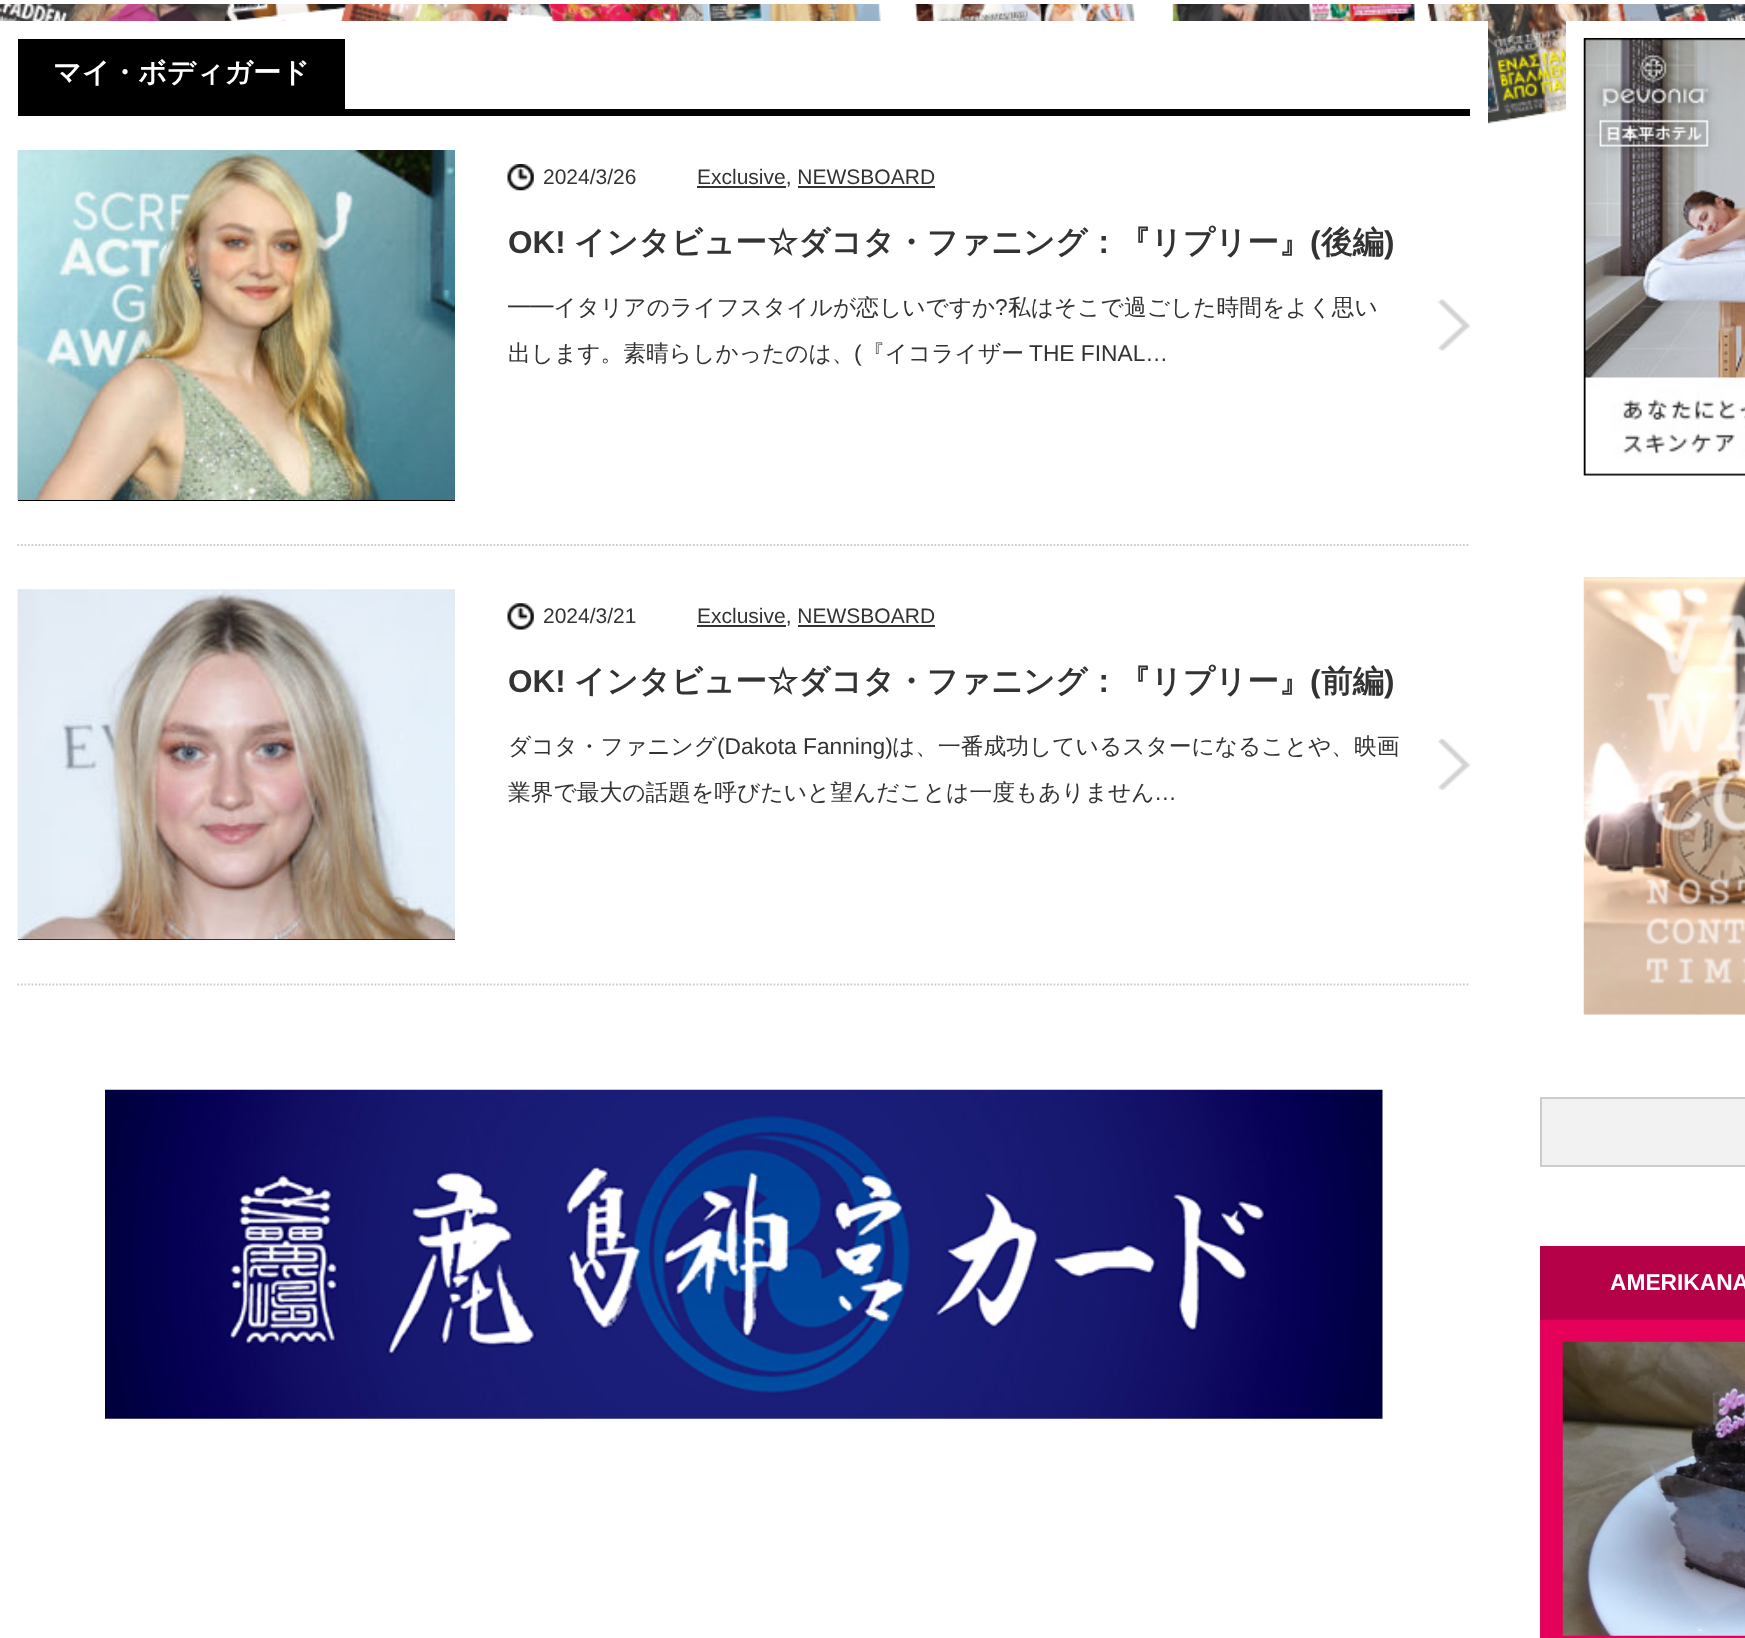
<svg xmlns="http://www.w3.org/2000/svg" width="1745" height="1638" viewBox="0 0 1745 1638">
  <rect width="100%" height="100%" fill="#ffffff"/>
  <image x="0" y="4" width="1745" height="120" href="img1.png"/>
  <rect x="0" y="21" width="1488" height="103" fill="#ffffff"/>
  <rect x="18" y="109" width="1452" height="7" fill="#000000"/>
  <rect x="18" y="39" width="327" height="70" fill="#000000"/>
  <text x="53" y="82" font-family="WenQuanYi Zen Hei" font-size="28" font-weight="bold" fill="#ffffff">マイ・ボディガード</text>
  <path d="M17.5 545H1470" fill="none" stroke="#cccccc" stroke-width="1.8" stroke-dasharray="1.75 1.75"/>
  <rect x="18" y="500" width="437" height="1" fill="#000000"/>
  <image x="17" y="150" width="438" height="350" href="img2.png"/>
  <image x="507" y="164" width="27" height="27" href="img3.png"/>
  <text x="543" y="184" font-family="Liberation Sans" font-size="21" fill="#333333">2024/3/26</text>
  <rect x="697" y="186" width="89" height="2" fill="#333333"/>
  <text x="697" y="184" font-family="Liberation Sans" font-size="21" fill="#333333">Exclusive, NEWSBOARD</text>
  <rect x="798" y="186" width="137" height="2" fill="#333333"/>
  <text x="508" y="253" font-family="Liberation Sans" font-size="31.5" font-weight="bold" fill="#333333">OK!</text>
  <text x="574" y="253" font-family="WenQuanYi Zen Hei" font-size="31.5" font-weight="bold" fill="#333333">インタビュー☆ダコタ・ファニング：『リプリー』</text>
  <text x="1310" y="253" font-family="Liberation Sans" font-size="31.5" font-weight="bold" fill="#333333">(</text>
  <text x="1321" y="253" font-family="WenQuanYi Zen Hei" font-size="31.5" font-weight="bold" fill="#333333">後編</text>
  <text x="1384" y="253" font-family="Liberation Sans" font-size="31.5" font-weight="bold" fill="#333333">)</text>
  <text x="508" y="315" font-family="WenQuanYi Zen Hei" font-size="22.75" font-weight="500" fill="#333333">━━イタリアのライフスタイルが恋しいですか</text>
  <text x="995" y="315" font-family="Liberation Sans" font-size="22.75" fill="#333333">?</text>
  <text x="1008" y="315" font-family="WenQuanYi Zen Hei" font-size="22.75" font-weight="500" fill="#333333">私はそこで過ごした時間をよく思い</text>
  <text x="508" y="361" font-family="WenQuanYi Zen Hei" font-size="22.75" font-weight="500" fill="#333333">出します。素晴らしかったのは、</text>
  <text x="854" y="361" font-family="Liberation Sans" font-size="22.75" fill="#333333">(</text>
  <text x="862" y="361" font-family="WenQuanYi Zen Hei" font-size="22.75" font-weight="500" fill="#333333">『イコライザー</text>
  <text x="1029" y="361" font-family="Liberation Sans" font-size="22.75" fill="#333333">THE FINAL…</text>
  <image x="1438" y="299" width="32" height="52" href="img4.png"/>
  <path d="M17.5 984.5H1470" fill="none" stroke="#cccccc" stroke-width="1.8" stroke-dasharray="1.75 1.75"/>
  <rect x="18" y="939" width="437" height="1" fill="#000000"/>
  <image x="17" y="589" width="438" height="351" href="img5.png"/>
  <image x="507" y="603" width="27" height="27" href="img6.png"/>
  <text x="543" y="623" font-family="Liberation Sans" font-size="21" fill="#333333">2024/3/21</text>
  <rect x="697" y="625" width="89" height="2" fill="#333333"/>
  <text x="697" y="623" font-family="Liberation Sans" font-size="21" fill="#333333">Exclusive, NEWSBOARD</text>
  <rect x="798" y="625" width="137" height="2" fill="#333333"/>
  <text x="508" y="692" font-family="Liberation Sans" font-size="31.5" font-weight="bold" fill="#333333">OK!</text>
  <text x="574" y="692" font-family="WenQuanYi Zen Hei" font-size="31.5" font-weight="bold" fill="#333333">インタビュー☆ダコタ・ファニング：『リプリー』</text>
  <text x="1310" y="692" font-family="Liberation Sans" font-size="31.5" font-weight="bold" fill="#333333">(</text>
  <text x="1321" y="692" font-family="WenQuanYi Zen Hei" font-size="31.5" font-weight="bold" fill="#333333">前編</text>
  <text x="1384" y="692" font-family="Liberation Sans" font-size="31.5" font-weight="bold" fill="#333333">)</text>
  <text x="508" y="754" font-family="WenQuanYi Zen Hei" font-size="22.75" font-weight="500" fill="#333333">ダコタ・ファニング</text>
  <text x="717" y="754" font-family="Liberation Sans" font-size="22.75" fill="#333333">(Dakota Fanning)</text>
  <text x="892" y="754" font-family="WenQuanYi Zen Hei" font-size="22.75" font-weight="500" fill="#333333">は、一番成功しているスターになることや、映画</text>
  <text x="508" y="800" font-family="WenQuanYi Zen Hei" font-size="22.75" font-weight="500" fill="#333333">業界で最大の話題を呼びたいと望んだことは一度もありません</text>
  <text x="1154" y="800" font-family="Liberation Sans" font-size="22.75" fill="#333333">…</text>
  <image x="1438" y="738" width="32" height="52" href="img7.png"/>
  <image x="105" y="1089" width="1278" height="330" href="img8.png"/>
  <rect x="1575" y="30" width="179" height="455" fill="none" stroke="#ffffff" stroke-width="18"/>
  <image x="1583" y="38" width="162" height="438" href="img9.png"/>
  <image x="1583" y="577" width="162" height="438" href="img10.png"/>
  <rect x="1541" y="1098" width="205" height="68" fill="#f2f2f2" stroke="#cccccc" stroke-width="2"/>
  <rect x="1540" y="1246" width="205" height="74" fill="#b50148"/>
  <text x="1610" y="1290" font-family="Liberation Sans" font-size="22.75" font-weight="bold" fill="#ffffff">AMERIKANA</text>
  <rect x="1540" y="1320" width="205" height="318" fill="#e5005a"/>
  <image x="1562" y="1341" width="183" height="295" href="img11.png"/>
</svg>
